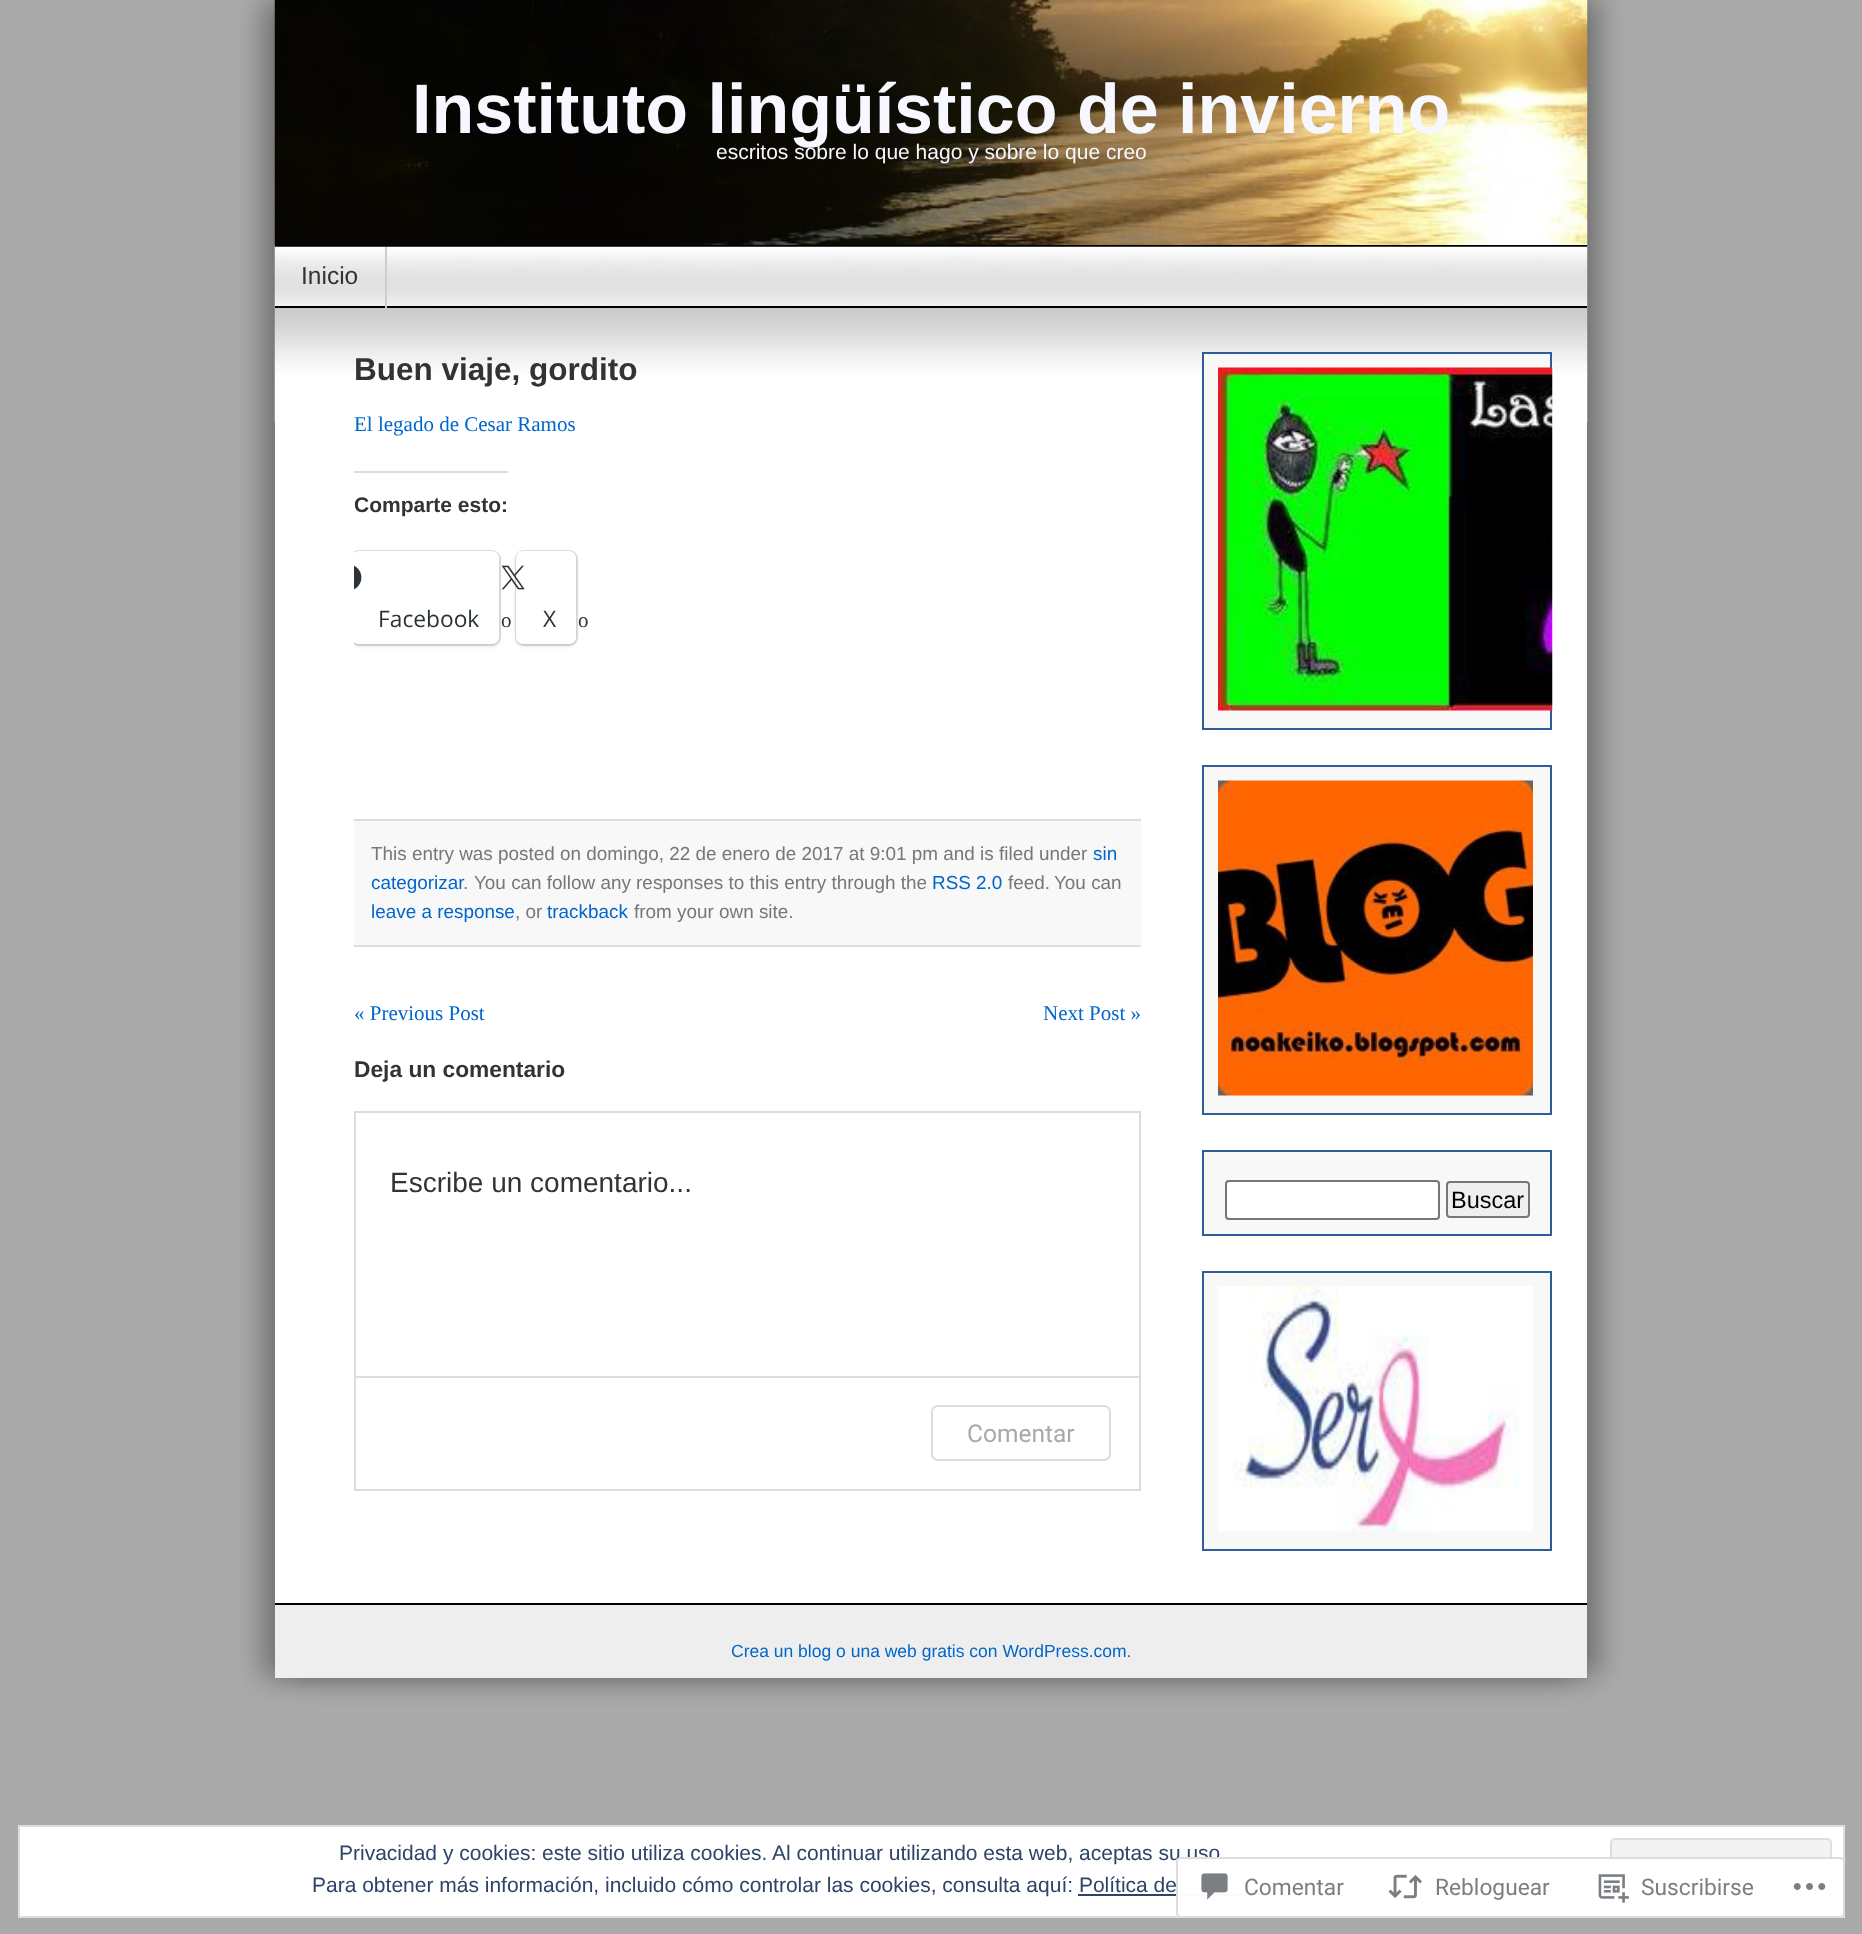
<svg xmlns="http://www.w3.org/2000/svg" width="1862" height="1934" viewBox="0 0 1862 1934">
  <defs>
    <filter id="blur1" x="-50%" y="-200%" width="200%" height="500%"><feGaussianBlur stdDeviation="14"/></filter>
    <clipPath id="clip1"><rect x="354" y="389" width="787" height="638"/></clipPath>
    <clipPath id="clip2"><rect x="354" y="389" width="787" height="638"/></clipPath>
    <filter id="blur2" x="-50%" y="-200%" width="200%" height="500%"><feGaussianBlur stdDeviation="2"/></filter>
  </defs>
  <rect width="100%" height="100%" fill="#aaaaaa"/>
  <rect x="261" y="0" width="1312" height="1678" fill="#000000" fill-opacity="0.3" filter="url(#blur1)"/>
  <rect x="289" y="-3" width="1312" height="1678" fill="#000000" fill-opacity="0.3" filter="url(#blur1)"/>
  <rect x="275" y="421" width="1312" height="1182" fill="#ffffff"/>
  <rect x="275" y="245" width="1312" height="2" fill="#000000"/>
  <image x="274" y="0" width="1314" height="245" href="img1.png"/>
  <text x="412" y="133" font-family="Liberation Sans" font-size="70" font-weight="bold" fill="#f6f7ff">Instituto lingüístico de invierno</text>
  <text x="716" y="159" font-family="Liberation Sans" font-size="21" fill="#f6f7ff">escritos sobre lo que hago y sobre lo que creo</text>
  <image x="274" y="246" width="1314" height="62" href="img2.png"/>
  <rect x="275" y="306" width="1312" height="2" fill="#000000"/>
  <rect x="385" y="247" width="2" height="61" fill="#cecece"/>
  <text x="301" y="284" font-family="Liberation Sans" font-size="24.5" fill="#333333">Inicio</text>
  <image x="274" y="308" width="1314" height="114" href="img3.png"/>
  <text x="354" y="380" font-family="Liberation Sans" font-size="31.5" font-weight="bold" fill="#333333">Buen viaje, gordito</text>
  <text x="354" y="431" font-family="Liberation Serif" font-size="21" fill="#0066cc">El legado de Cesar Ramos</text>
  <rect x="354" y="471" width="154" height="2" fill="#dcdcde"/>
  <text x="354" y="512" font-family="Liberation Sans" font-size="21" font-weight="bold" fill="#333333">Comparte esto:</text>
  <g clip-path="url(#clip1)">
    <rect x="351" y="551" width="149" height="94" rx="8" fill="none" stroke="#e0e0e0" stroke-width="2"/>
  </g>
  <g clip-path="url(#clip2)">
    <rect x="352" y="553" width="147" height="93" rx="7" fill="#000000" fill-opacity="0.12" filter="url(#blur2)"/>
  </g>
  <g clip-path="url(#clip1)">
    <rect x="352" y="551" width="147" height="93" rx="7" fill="#ffffff"/>
  </g>
  <image x="354" y="565" width="8" height="25" href="img4.png"/>
  <text x="378" y="627" font-family="Open Sans" font-size="22.75" fill="#2c3338">Facebook</text>
  <text x="501" y="627" font-family="Liberation Serif" font-size="21" fill="#333333">o</text>
  <rect x="516" y="551" width="61" height="94" rx="8" fill="none" stroke="#e0e0e0" stroke-width="2"/>
  <rect x="516" y="553" width="60" height="93" rx="7" fill="#000000" fill-opacity="0.12" filter="url(#blur2)"/>
  <rect x="516" y="551" width="60" height="93" rx="7" fill="#ffffff"/>
  <image x="501" y="565" width="24" height="25" href="img5.png"/>
  <text x="543" y="627" font-family="Open Sans" font-size="22.75" fill="#2c3338">X</text>
  <text x="578" y="627" font-family="Liberation Serif" font-size="21" fill="#333333">o</text>
  <rect x="354" y="821" width="787" height="124" fill="#f8f8f8"/>
  <rect x="354" y="819" width="787" height="2" fill="#dddddd"/>
  <rect x="354" y="945" width="787" height="2" fill="#dddddd"/>
  <text x="371" y="860" font-family="Liberation Sans" font-size="18.9" fill="#777777">This entry was posted on domingo, 22 de enero de 2017 at 9:01 pm and is filed under</text>
  <text x="1093" y="860" font-family="Liberation Sans" font-size="18.9" fill="#0066cc">sin</text>
  <text x="371" y="889" font-family="Liberation Sans" font-size="18.9" fill="#0066cc">categorizar</text>
  <text x="463" y="889" font-family="Liberation Sans" font-size="18.9" fill="#777777">.</text>
  <text x="474" y="889" font-family="Liberation Sans" font-size="18.9" fill="#777777">You can follow any responses to this entry through the</text>
  <text x="932" y="889" font-family="Liberation Sans" font-size="18.9" fill="#0066cc">RSS 2.0</text>
  <text x="1008" y="889" font-family="Liberation Sans" font-size="18.9" fill="#777777">feed.</text>
  <text x="1054" y="889" font-family="Liberation Sans" font-size="18.9" fill="#777777">You can</text>
  <text x="371" y="918" font-family="Liberation Sans" font-size="18.9" fill="#0066cc">leave a response</text>
  <text x="515" y="918" font-family="Liberation Sans" font-size="18.9" fill="#777777">, or</text>
  <text x="547" y="918" font-family="Liberation Sans" font-size="18.9" fill="#0066cc">trackback</text>
  <text x="634" y="918" font-family="Liberation Sans" font-size="18.9" fill="#777777">from your own site.</text>
  <text x="354" y="1020" font-family="Liberation Serif" font-size="21" fill="#0066cc">« Previous Post</text>
  <text x="1043" y="1020" font-family="Liberation Serif" font-size="21" fill="#0066cc">Next Post »</text>
  <text x="354" y="1077" font-family="Liberation Sans" font-size="22.75" font-weight="bold" fill="#333333">Deja un comentario</text>
  <rect x="355" y="1112" width="785" height="378" fill="none" stroke="#dcdcde" stroke-width="2"/>
  <text x="390" y="1192" font-family="Liberation Sans" font-size="28" fill="#333333">Escribe un comentario...</text>
  <rect x="355" y="1376" width="784" height="2" fill="#dcdcde"/>
  <rect x="932" y="1406" width="178" height="54" rx="6" fill="none" stroke="#dcdcde" stroke-width="2"/>
  <text x="967" y="1442" font-family="Roboto" font-size="24.5" fill="#a7aaad">Comentar</text>
  <rect x="1203" y="353" width="348" height="376" fill="#f8f8f8" stroke="#2e5d99" stroke-width="2"/>
  <image x="1218" y="367" width="335" height="344" href="img6.png"/>
  <rect x="1203" y="766" width="348" height="348" fill="#f8f8f8" stroke="#2e5d99" stroke-width="2"/>
  <image x="1218" y="780" width="315" height="316" href="img7.png"/>
  <rect x="1203" y="1151" width="348" height="84" fill="#f8f8f8" stroke="#2e5d99" stroke-width="2"/>
  <rect x="1226" y="1181" width="213" height="38" rx="3" fill="#ffffff" stroke="#767676" stroke-width="2"/>
  <rect x="1447" y="1182" width="82" height="35" rx="3" fill="#efefef" stroke="#767676" stroke-width="2"/>
  <text x="1451" y="1208" font-family="Liberation Sans" font-size="23.5" fill="#000000">Buscar</text>
  <rect x="1203" y="1272" width="348" height="278" fill="#f8f8f8" stroke="#2e5d99" stroke-width="2"/>
  <image x="1218" y="1286" width="315" height="246" href="img8.png"/>
  <rect x="275" y="1605" width="1312" height="73" fill="#eeeeee"/>
  <rect x="275" y="1603" width="1312" height="2" fill="#000000"/>
  <text x="731" y="1657" font-family="Liberation Sans" font-size="17.5" fill="#0066cc">Crea un blog o una web gratis con WordPress.com.</text>
  <rect x="19" y="1826" width="1825" height="91" fill="#ffffff" stroke="#dedede" stroke-width="2"/>
  <text x="339" y="1860" font-family="Liberation Sans" font-size="21" fill="#2e4467">Privacidad y cookies: este sitio utiliza cookies. Al continuar utilizando esta web, aceptas su uso</text>
  <rect x="1611" y="1839" width="220" height="66" rx="4" fill="#f3f3f3" stroke="#dedede" stroke-width="2"/>
  <text x="312" y="1892" font-family="Liberation Sans" font-size="21" fill="#2e4467">Para obtener más información, incluido cómo controlar las cookies, consulta aquí: Política de</text>
  <rect x="1078" y="1894" width="177" height="2" fill="#2e4467"/>
  <rect x="1176" y="1857" width="669" height="61" rx="5" fill="#ffffff" fill-opacity="0.98"/>
  <rect x="1177" y="1858" width="667" height="59" rx="4" fill="none" stroke="#dcdcde" stroke-opacity="0.98" stroke-width="2"/>
  <image x="1201" y="1873" width="27" height="27" href="img9.png"/>
  <text x="1244" y="1895" font-family="Roboto" font-size="22.75" fill="#7b7f84">Comentar</text>
  <image x="1388" y="1874" width="34" height="25" href="img10.png"/>
  <text x="1435" y="1895" font-family="Roboto" font-size="22.75" fill="#7b7f84">Rebloguear</text>
  <image x="1598" y="1874" width="31" height="29" href="img11.png"/>
  <text x="1641" y="1895" font-family="Roboto" font-size="22.75" fill="#7b7f84">Suscribirse</text>
  <image x="1793" y="1883" width="33" height="7" href="img12.png"/>
</svg>
